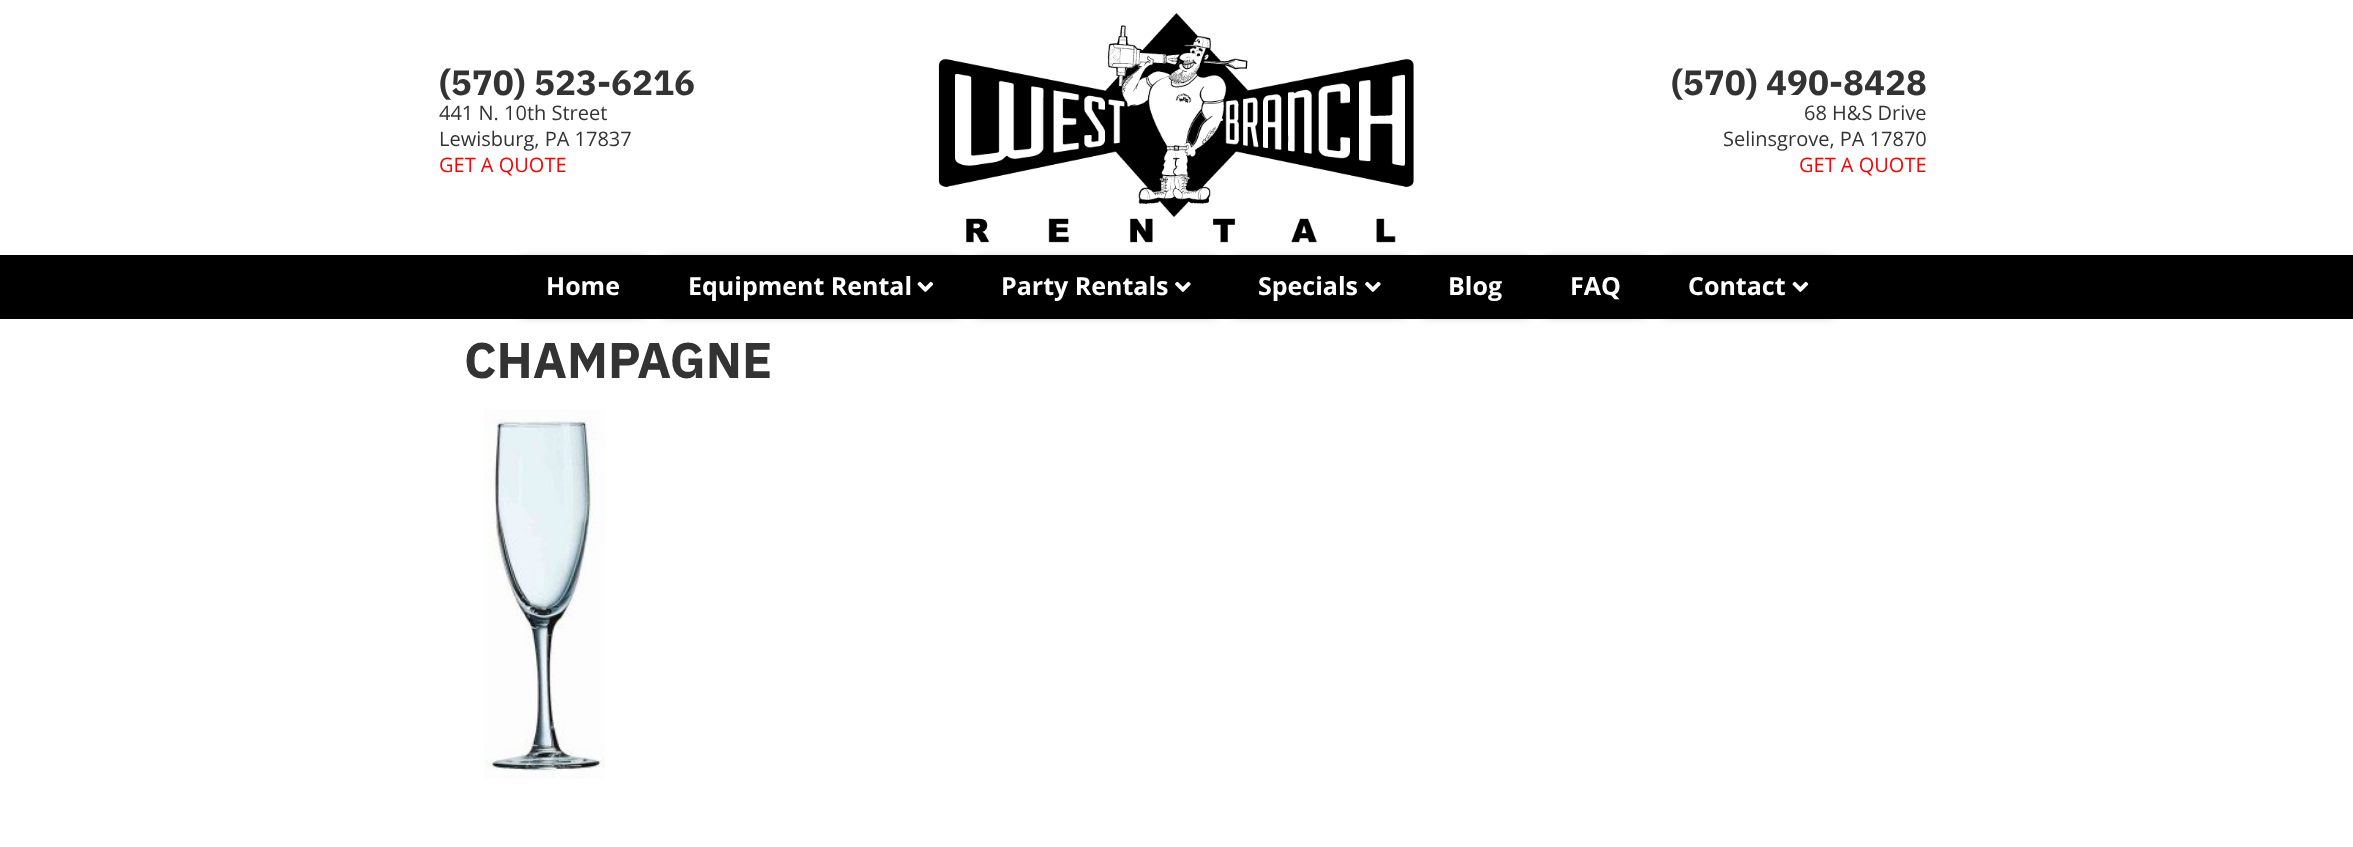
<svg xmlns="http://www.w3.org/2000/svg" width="2353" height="847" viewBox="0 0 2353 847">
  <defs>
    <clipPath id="clip1"><path d="M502 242H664V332H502ZM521 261H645V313H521Z" clip-rule="evenodd"/></clipPath>
    <filter id="blur1" x="-50%" y="-200%" width="200%" height="500%"><feGaussianBlur stdDeviation="6"/></filter>
    <clipPath id="clip2"><path d="M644 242H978V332H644ZM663 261H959V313H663Z" clip-rule="evenodd"/></clipPath>
    <clipPath id="clip3"><path d="M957 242H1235V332H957ZM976 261H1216V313H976Z" clip-rule="evenodd"/></clipPath>
    <clipPath id="clip4"><path d="M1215 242H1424V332H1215ZM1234 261H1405V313H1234Z" clip-rule="evenodd"/></clipPath>
    <clipPath id="clip5"><path d="M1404 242H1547V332H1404ZM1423 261H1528V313H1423Z" clip-rule="evenodd"/></clipPath>
    <clipPath id="clip6"><path d="M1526 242H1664V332H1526ZM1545 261H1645V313H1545Z" clip-rule="evenodd"/></clipPath>
    <clipPath id="clip7"><path d="M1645 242H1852V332H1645ZM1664 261H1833V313H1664Z" clip-rule="evenodd"/></clipPath>
  </defs>
  <rect width="100%" height="100%" fill="#ffffff"/>
  <text x="439" y="95" font-family="IBM Plex Sans" font-size="35" font-weight="bold" fill="#333333">(570) 523-6216</text>
  <text x="439" y="120" font-family="Open Sans" font-size="20" fill="#333333">441 N. 10th Street</text>
  <text x="439" y="146" font-family="Open Sans" font-size="20" fill="#333333">Lewisburg, PA 17837</text>
  <text x="439" y="172" font-family="Open Sans" font-size="20" fill="#ff0000">GET A QUOTE</text>
  <image x="938" y="13" width="476" height="230" href="img1.png"/>
  <text x="1671" y="95" font-family="IBM Plex Sans" font-size="35" font-weight="bold" fill="#333333">(570) 490-8428</text>
  <text x="1804" y="120" font-family="Open Sans" font-size="20" fill="#333333">68 H&amp;S Drive</text>
  <text x="1723" y="146" font-family="Open Sans" font-size="20" fill="#333333">Selinsgrove, PA 17870</text>
  <text x="1799" y="172" font-family="Open Sans" font-size="20" fill="#ff0000">GET A QUOTE</text>
  <rect x="0" y="255" width="2353" height="64" fill="#000000"/>
  <g clip-path="url(#clip1)">
    <rect x="521" y="261" width="124" height="52" fill="#000000" fill-opacity="0.5" filter="url(#blur1)"/>
  </g>
  <text x="546" y="295" font-family="Open Sans" font-size="25" font-weight="bold" fill="#ffffff">Home</text>
  <g clip-path="url(#clip2)">
    <rect x="663" y="261" width="296" height="52" fill="#000000" fill-opacity="0.5" filter="url(#blur1)"/>
  </g>
  <text x="688" y="295" font-family="Open Sans" font-size="25" font-weight="bold" fill="#ffffff">Equipment Rental</text>
  <image x="917" y="281" width="17" height="11" href="img2.png"/>
  <g clip-path="url(#clip3)">
    <rect x="976" y="261" width="240" height="52" fill="#000000" fill-opacity="0.5" filter="url(#blur1)"/>
  </g>
  <text x="1001" y="295" font-family="Open Sans" font-size="25" font-weight="bold" fill="#ffffff">Party Rentals</text>
  <image x="1175" y="281" width="16" height="11" href="img3.png"/>
  <g clip-path="url(#clip4)">
    <rect x="1234" y="261" width="171" height="52" fill="#000000" fill-opacity="0.5" filter="url(#blur1)"/>
  </g>
  <text x="1258" y="295" font-family="Open Sans" font-size="25" font-weight="bold" fill="#ffffff">Specials</text>
  <image x="1365" y="281" width="16" height="11" href="img3.png"/>
  <g clip-path="url(#clip5)">
    <rect x="1423" y="261" width="105" height="52" fill="#000000" fill-opacity="0.5" filter="url(#blur1)"/>
  </g>
  <text x="1448" y="295" font-family="Open Sans" font-size="25" font-weight="bold" fill="#ffffff">Blog</text>
  <g clip-path="url(#clip6)">
    <rect x="1545" y="261" width="100" height="52" fill="#000000" fill-opacity="0.5" filter="url(#blur1)"/>
  </g>
  <text x="1570" y="295" font-family="Open Sans" font-size="25" font-weight="bold" fill="#ffffff">FAQ</text>
  <g clip-path="url(#clip7)">
    <rect x="1664" y="261" width="169" height="52" fill="#000000" fill-opacity="0.5" filter="url(#blur1)"/>
  </g>
  <text x="1688" y="295" font-family="Open Sans" font-size="25" font-weight="bold" fill="#ffffff">Contact</text>
  <image x="1792" y="281" width="17" height="11" href="img2.png"/>
  <text x="464" y="378" font-family="IBM Plex Sans" font-size="50" font-weight="bold" fill="#333333">CHAMPAGNE</text>
  <image x="484" y="409" width="121" height="370" href="img4.png"/>
</svg>
